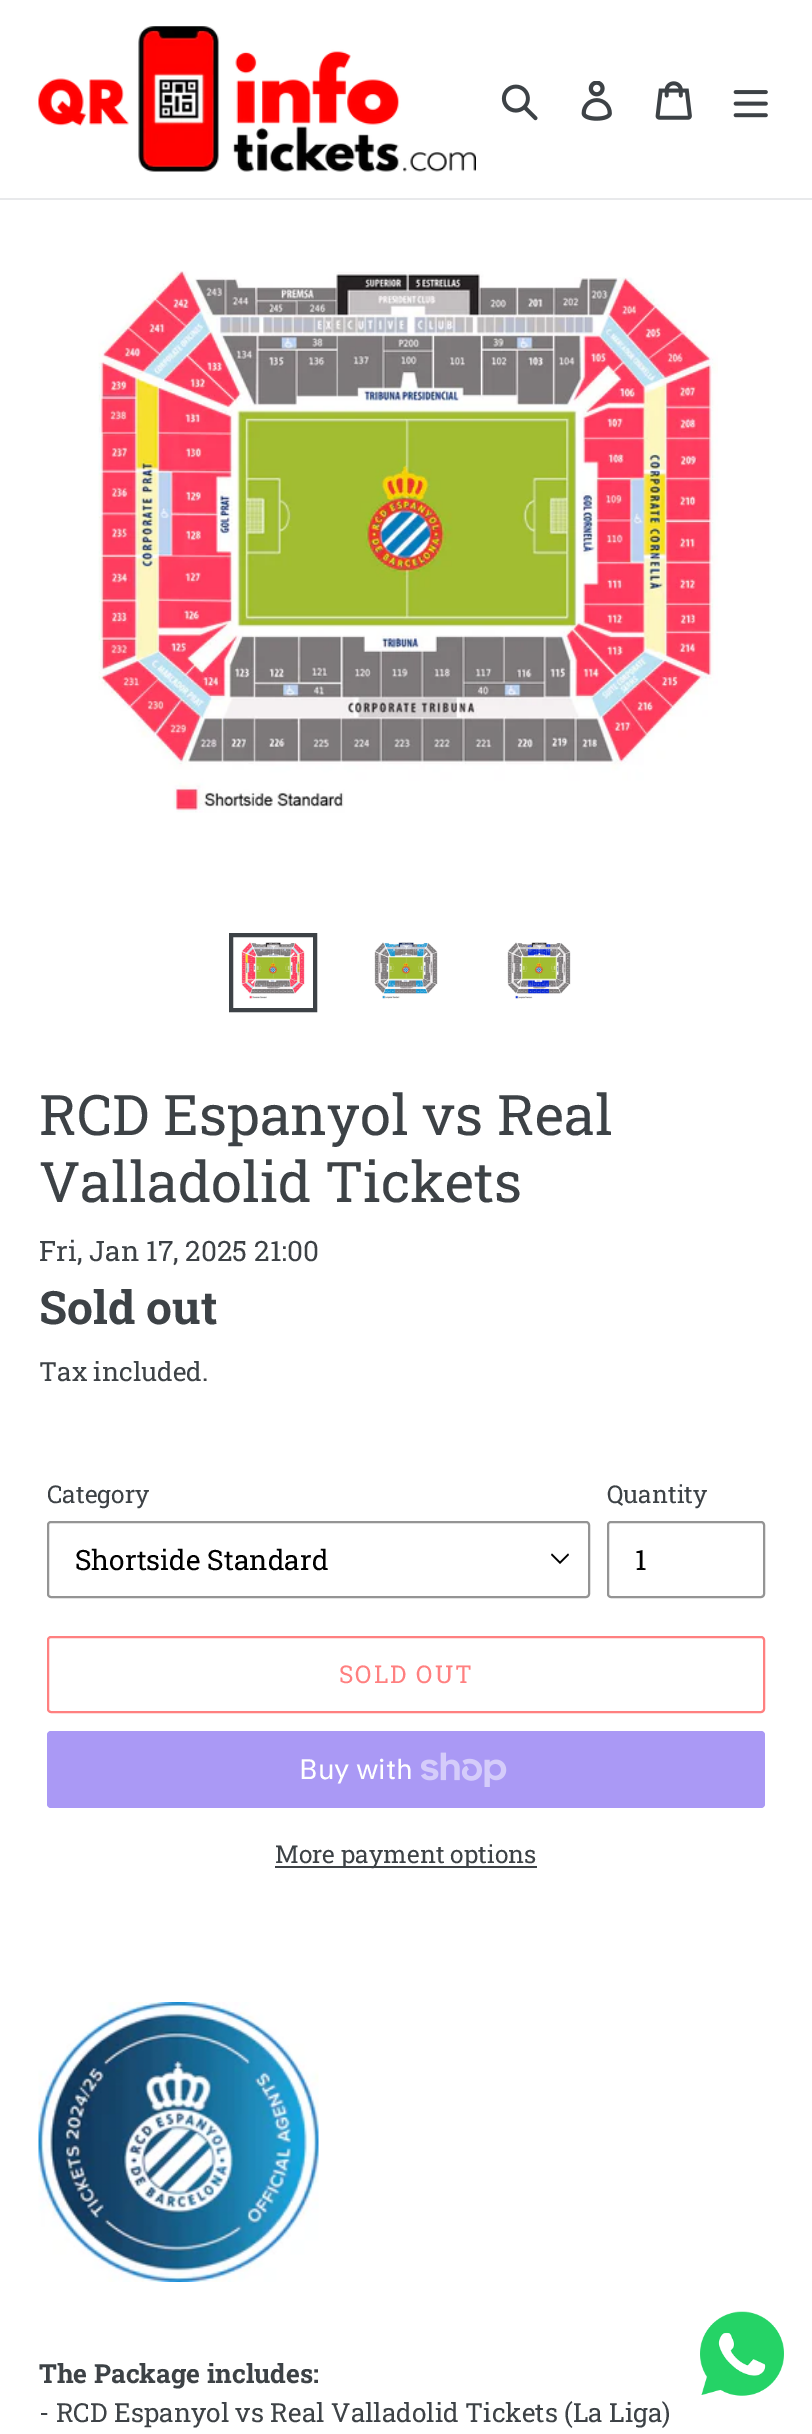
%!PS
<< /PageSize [812 2434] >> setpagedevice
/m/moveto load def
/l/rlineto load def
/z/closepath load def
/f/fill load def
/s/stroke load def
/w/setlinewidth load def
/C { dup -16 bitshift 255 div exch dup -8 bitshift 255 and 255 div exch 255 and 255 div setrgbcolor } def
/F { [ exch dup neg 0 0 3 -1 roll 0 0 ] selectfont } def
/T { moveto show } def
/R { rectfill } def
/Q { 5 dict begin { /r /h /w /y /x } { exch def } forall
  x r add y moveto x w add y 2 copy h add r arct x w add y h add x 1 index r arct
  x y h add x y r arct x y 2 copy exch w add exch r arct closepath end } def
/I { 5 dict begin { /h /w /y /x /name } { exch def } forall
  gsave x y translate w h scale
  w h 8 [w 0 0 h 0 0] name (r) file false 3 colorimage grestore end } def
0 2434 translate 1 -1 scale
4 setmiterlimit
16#FFFFFF C
0 0 812 2434 R
16#E8E9EB C
0 198 812 2 R
(1.rgb) 38 26 438 146 I
(2.rgb) 501 84 37 37 I
(3.rgb) 581 81 31 40 I
(4.rgb) 655 81 37 39 I
(5.rgb) 733 90 35 28 I
(6.rgb) 98 270 620 543 I
16#3D4246 C
4 w
231 935 84 75 rectstroke
(7.rgb) 241 942 65 57 I
(8.rgb) 374 942 64 57 I
(9.rgb) 507 942 64 57 I
/RobotoSlab-Regular 56 F
(RCD Espanyol vs Real) 39 1135 T
(Valladolid Tickets) 39 1202 T
/RobotoSlab-Regular 28 F
(Fri, Jan 17, 2025 21:00) 39 1261 T
/RobotoSlab-Bold 46 F
(Sold out) 39 1324 T
/RobotoSlab-Regular 26.25 F
(Tax included.) 39 1381 T
/RobotoSlab-Regular 24.5 F
(Category) 47 1503 T
16#000000 C
560 1564 m -9 -9 l 1 -1.5 l 8 8 l 8 -8 l 1 1.5 l z f
16#949494 C
2 w
48 1522 541 75 3 Q s
/RobotoSlab-Regular 28 F
16#000000 C
(Shortside Standard) 75 1570 T
/RobotoSlab-Regular 24.5 F
16#3D4246 C
(Quantity) 607 1503 T
16#949494 C
608 1522 156 75 3 Q s
/RobotoSlab-Regular 28 F
16#000000 C
(1) 635 1570 T
16#FF8080 C
48 1637 716 75 3 Q s
/RobotoSlab-Regular 24.5 F
339 1683 m 2 0 (SOLD OUT) ashow
16#AA99F5 C
47 1731 718 77 4 Q f
/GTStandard-Regular 28 F
16#FFFFFF C
(Buy with) 299 1779 T
(10.rgb) 421 1752 86 35 I
16#3D4246 C
275 1866 262 2 R
/RobotoSlab-Regular 24.5 F
(More payment options) 275 1863 T
(11.rgb) 38 2002 281 280 I
/RobotoSlab-Bold 26.25 F
(The Package includes:) 39 2383 T
/RobotoSlab-Regular 26.25 F
(- RCD Espanyol vs Real Valladolid Tickets \(La Liga\)) 39 2422 T
(12.rgb) 700 2311 84 85 I
showpage
